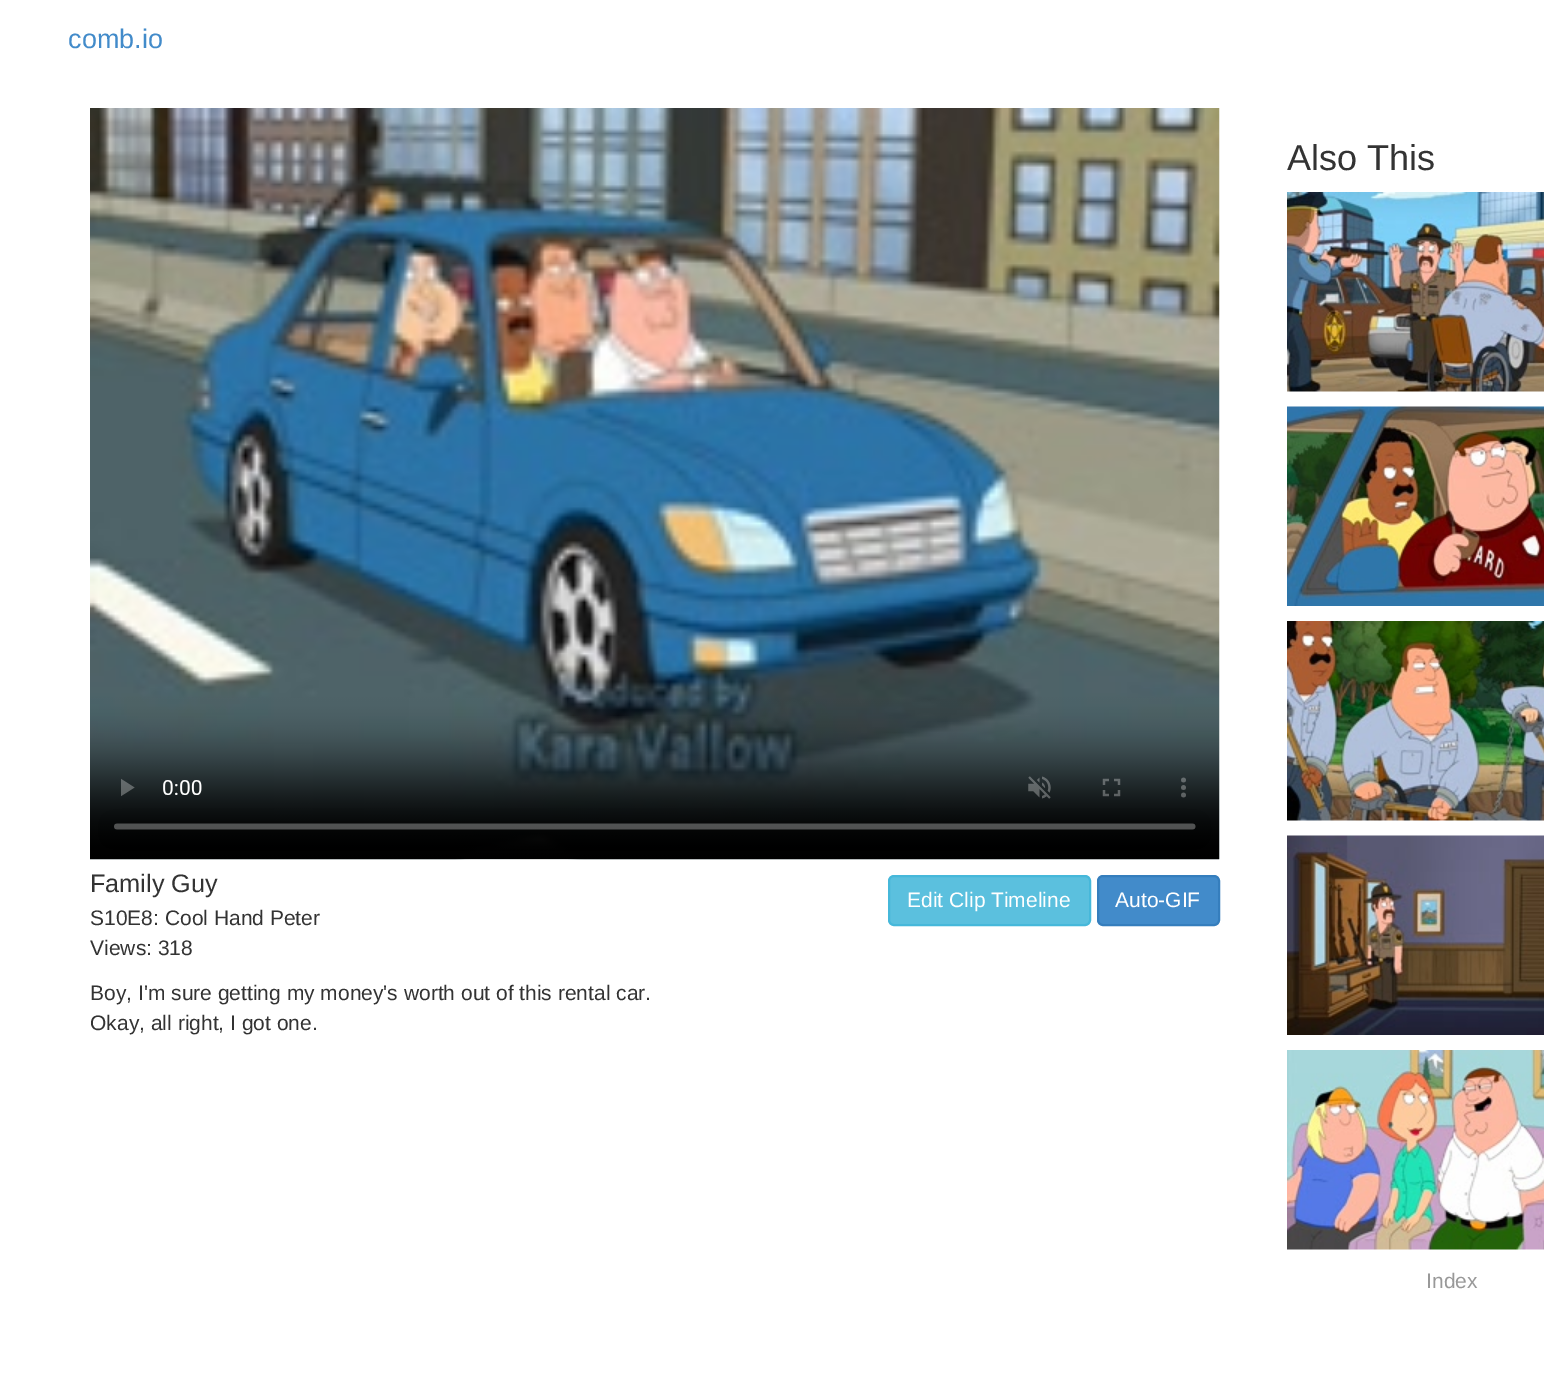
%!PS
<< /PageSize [1544 1388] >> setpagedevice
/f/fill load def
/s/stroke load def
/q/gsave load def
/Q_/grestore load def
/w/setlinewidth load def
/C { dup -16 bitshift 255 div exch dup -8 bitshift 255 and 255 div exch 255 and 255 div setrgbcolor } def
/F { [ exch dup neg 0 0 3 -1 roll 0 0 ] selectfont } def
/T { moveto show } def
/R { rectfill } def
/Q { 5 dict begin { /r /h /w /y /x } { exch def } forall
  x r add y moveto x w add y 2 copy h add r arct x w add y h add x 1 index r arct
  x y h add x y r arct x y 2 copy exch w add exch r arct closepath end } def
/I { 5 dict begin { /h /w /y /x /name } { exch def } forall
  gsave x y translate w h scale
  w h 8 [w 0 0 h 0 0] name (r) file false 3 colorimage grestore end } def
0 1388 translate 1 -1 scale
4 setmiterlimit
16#FFFFFF C
0 0 1544 1388 R
/LiberationSans-Regular 27 F
16#428BCA C
(comb.io) 68 48 T
/LiberationSans-Regular 36 F
16#333333 C
(Also This) 1287 170 T
(1.rgb) 1287 192 257 200 I
(2.rgb) 1287 406 257 200 I
(3.rgb) 1287 621 257 200 I
(4.rgb) 1287 835 257 200 I
(5.rgb) 1287 1050 257 200 I
(6.rgb) 90 108 1130 752 I
/LiberationSans-Regular 25.25 F
(Family Guy) 90 892 T
/LiberationSans-Regular 21 F
(S10E8: Cool Hand Peter) 90 925 T
(Views: 318) 90 955 T
(Boy, I'm sure getting my money's worth out of this rental car.) 90 1000 T
(Okay, all right, I got one.) 90 1030 T
16#5BC0DE C
889 876 201 49 5 Q q f Q_
16#46B8DA C
2 w
s
16#FFFFFF C
(Edit Clip Timeline) 907 907 T
16#428BCA C
1098 876 121 49 5 Q q f Q_
16#357EBD C
s
16#FFFFFF C
(Auto-GIF) 1115 907 T
16#999999 C
(Index) 1426 1288 T
showpage
